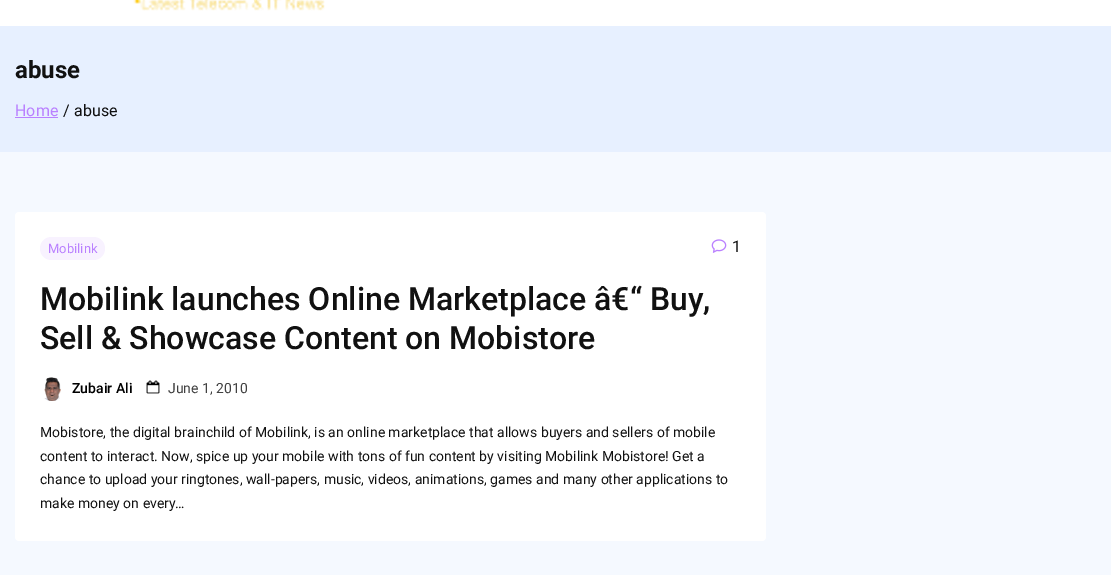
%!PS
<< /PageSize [1111 575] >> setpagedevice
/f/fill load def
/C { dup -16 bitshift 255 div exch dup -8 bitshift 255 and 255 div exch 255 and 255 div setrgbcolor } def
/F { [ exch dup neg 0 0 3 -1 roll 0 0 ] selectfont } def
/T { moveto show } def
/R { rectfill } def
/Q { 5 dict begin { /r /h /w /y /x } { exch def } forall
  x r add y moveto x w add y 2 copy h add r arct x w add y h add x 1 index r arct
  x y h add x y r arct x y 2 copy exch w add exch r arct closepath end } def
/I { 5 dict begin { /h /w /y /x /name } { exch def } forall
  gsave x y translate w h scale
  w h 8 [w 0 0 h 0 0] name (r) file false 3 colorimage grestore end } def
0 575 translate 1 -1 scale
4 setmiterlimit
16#FFFFFF C
0 0 1111 575 R
(1.rgb) 133 0 192 11 I
16#E7F0FF C
0 26 1111 126 R
/Roboto-Bold 24 F
16#111111 C
(abuse) 15 78 T
/Roboto-Regular 16 F
16#BA81FF C
(Home) 15 116 T
15 117 43 1 R
16#111111 C
(/) 63 116 T
(abuse) 74 116 T
16#F5F9FF C
0 152 1111 423 R
16#FFFFFF C
15 212 751 329 4 Q f
16#F8F2FF C
40 237 65 23 11.5 Q f
/Roboto-Regular 13 F
16#BA81FF C
(Mobilink) 48 253 T
(2.rgb) 711 239 16 14 I
/Roboto-Regular 16 F
16#111111 C
(1) 732 252 T
/Roboto-Medium 32 F
(Mobilink launches Online Marketplace â€“ Buy,) 40 310 T
(Sell & Showcase Content on Mobistore) 40 349 T
(3.rgb) 44 377 17 24 I
/Roboto-Medium 14 F
16#000000 C
(Zubair Ali) 72 393 T
(4.rgb) 146 380 14 14 I
/Roboto-Regular 14 F
16#414141 C
(June 1, 2010) 168 393 T
16#111111 C
(Mobistore, the digital brainchild of Mobilink, is an online marketplace that allows buyers and sellers of mobile) 40 437 T
(content to interact. Now, spice up your mobile with tons of fun content by visiting Mobilink Mobistore! Get a) 40 461 T
(chance to upload your ringtones, wall-papers, music, videos, animations, games and many other applications to) 40 484 T
(make money on every…) 40 508 T
showpage
